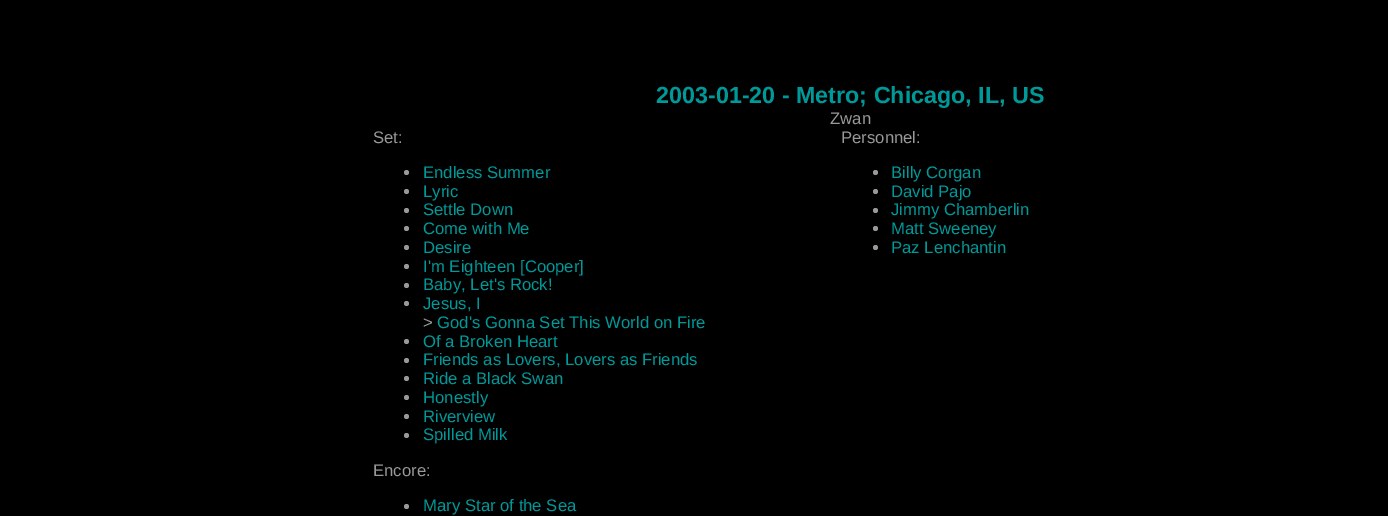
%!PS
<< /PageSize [1388 516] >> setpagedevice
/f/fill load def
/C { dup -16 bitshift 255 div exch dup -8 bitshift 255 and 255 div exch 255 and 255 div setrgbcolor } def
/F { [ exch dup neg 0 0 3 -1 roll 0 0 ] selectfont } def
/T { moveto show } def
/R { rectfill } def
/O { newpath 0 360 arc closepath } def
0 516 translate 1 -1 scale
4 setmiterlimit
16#000000 C
0 0 1388 516 R
/LiberationSans-Bold 23.3 F
16#009999 C
(2003-01-20 - Metro; Chicago, IL, US) 656 103 T
/LiberationSans-Regular 16.7 F
16#999999 C
(Zwan) 830 124 T
(Set:) 373 143 T
406.5 172.5 2.5 O f
16#009999 C
(Endless Summer) 423 178 T
16#999999 C
406.5 191.5 2.5 O f
16#009999 C
(Lyric) 423 197 T
16#999999 C
406.5 210.5 2.5 O f
16#009999 C
(Settle Down) 423 215 T
16#999999 C
406.5 228.5 2.5 O f
16#009999 C
(Come with Me) 423 234 T
16#999999 C
406.5 247.5 2.5 O f
16#009999 C
(Desire) 423 253 T
16#999999 C
406.5 266.5 2.5 O f
16#009999 C
(I'm Eighteen [Cooper]) 423 272 T
16#999999 C
406.5 285.5 2.5 O f
16#009999 C
(Baby, Let's Rock!) 423 290 T
16#999999 C
406.5 303.5 2.5 O f
16#009999 C
(Jesus, I) 423 309 T
16#999999 C
(>) 423 328 T
16#009999 C
(God's Gonna Set This World on Fire) 437 328 T
16#999999 C
406.5 341.5 2.5 O f
16#009999 C
(Of a Broken Heart) 423 347 T
16#999999 C
406.5 360.5 2.5 O f
16#009999 C
(Friends as Lovers, Lovers as Friends) 423 365 T
16#999999 C
406.5 378.5 2.5 O f
16#009999 C
(Ride a Black Swan) 423 384 T
16#999999 C
406.5 397.5 2.5 O f
16#009999 C
(Honestly) 423 403 T
16#999999 C
406.5 416.5 2.5 O f
16#009999 C
(Riverview) 423 422 T
16#999999 C
406.5 435.5 2.5 O f
16#009999 C
(Spilled Milk) 423 440 T
16#999999 C
(Encore:) 373 476 T
406.5 506.5 2.5 O f
16#009999 C
(Mary Star of the Sea) 423 511 T
16#999999 C
(Personnel:) 841 143 T
875.5 172.5 2.5 O f
16#009999 C
(Billy Corgan) 891 178 T
16#999999 C
875.5 191.5 2.5 O f
16#009999 C
(David Pajo) 891 197 T
16#999999 C
875.5 210.5 2.5 O f
16#009999 C
(Jimmy Chamberlin) 891 215 T
16#999999 C
875.5 228.5 2.5 O f
16#009999 C
(Matt Sweeney) 891 234 T
16#999999 C
875.5 247.5 2.5 O f
16#009999 C
(Paz Lenchantin) 891 253 T
showpage
